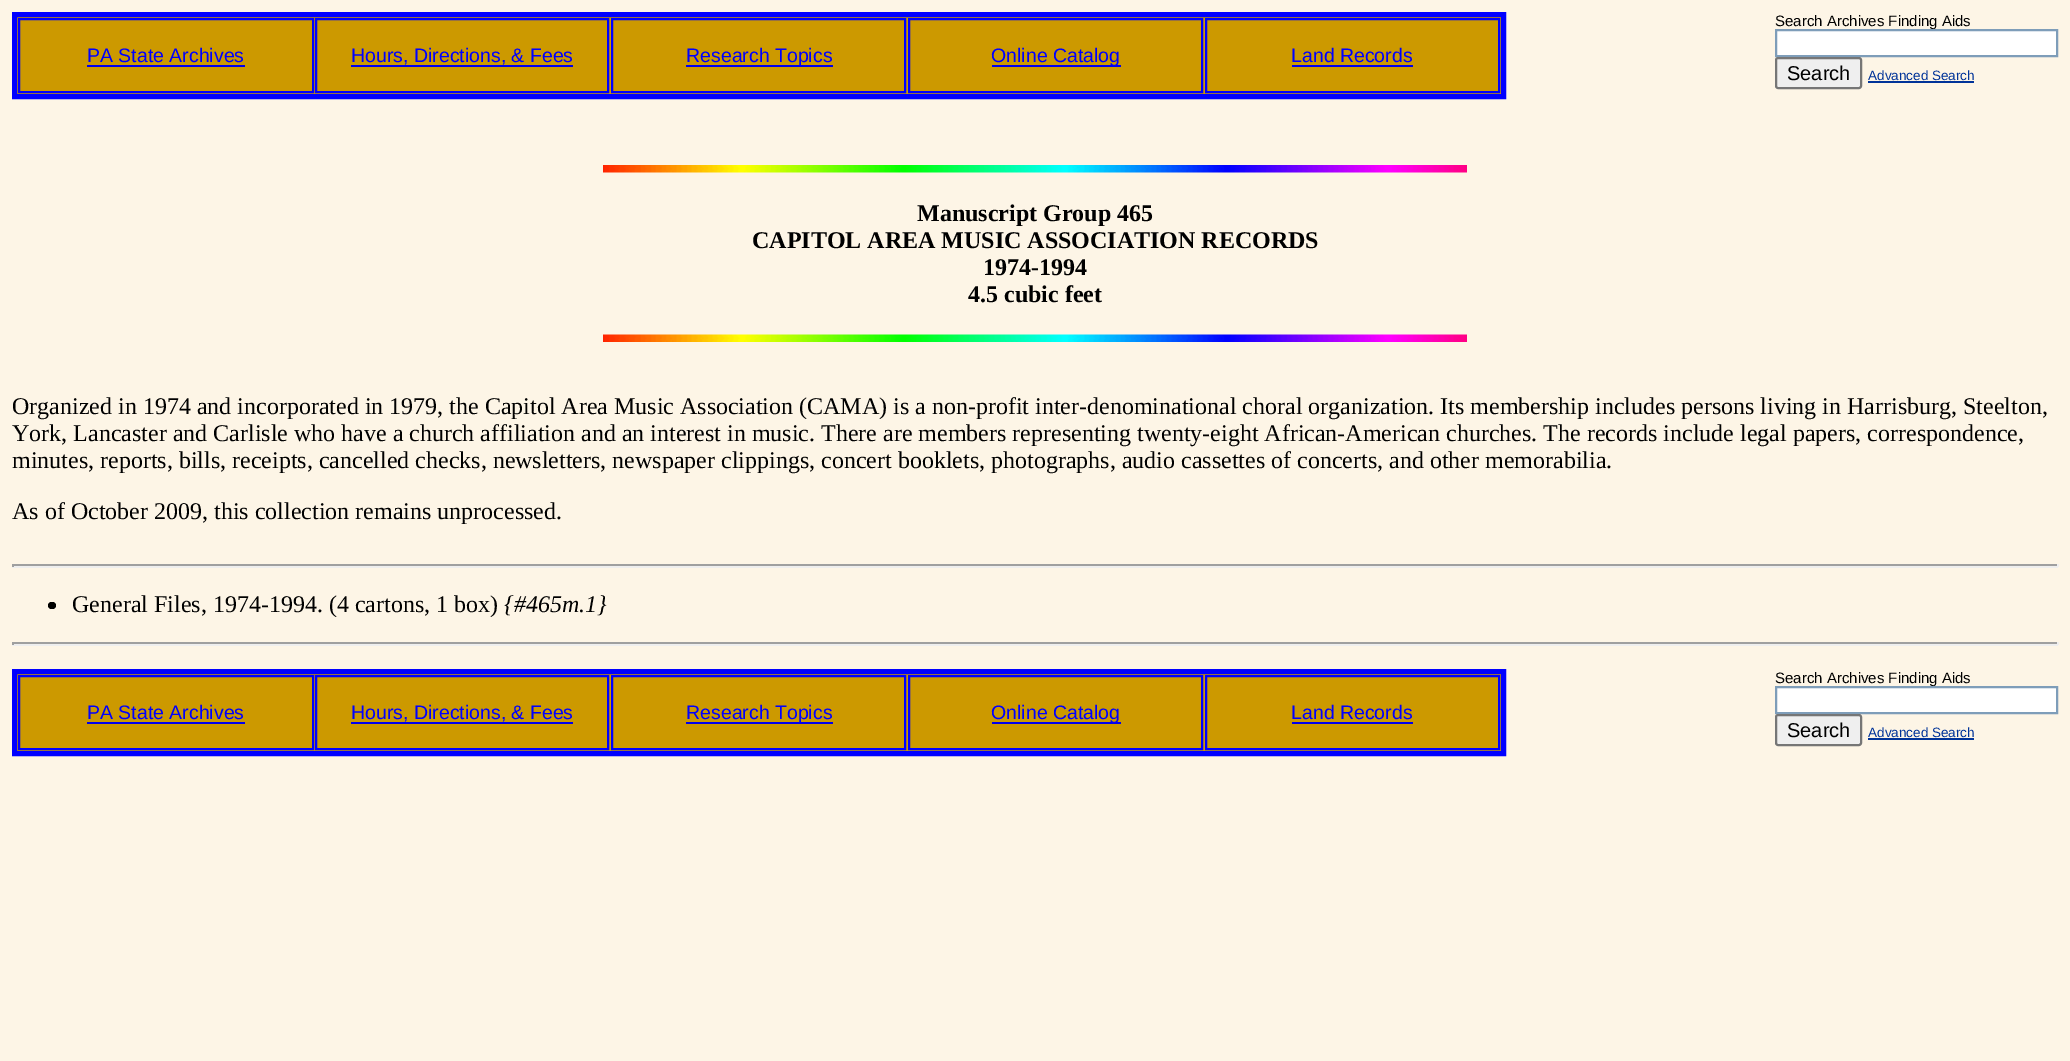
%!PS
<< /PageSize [2070 1061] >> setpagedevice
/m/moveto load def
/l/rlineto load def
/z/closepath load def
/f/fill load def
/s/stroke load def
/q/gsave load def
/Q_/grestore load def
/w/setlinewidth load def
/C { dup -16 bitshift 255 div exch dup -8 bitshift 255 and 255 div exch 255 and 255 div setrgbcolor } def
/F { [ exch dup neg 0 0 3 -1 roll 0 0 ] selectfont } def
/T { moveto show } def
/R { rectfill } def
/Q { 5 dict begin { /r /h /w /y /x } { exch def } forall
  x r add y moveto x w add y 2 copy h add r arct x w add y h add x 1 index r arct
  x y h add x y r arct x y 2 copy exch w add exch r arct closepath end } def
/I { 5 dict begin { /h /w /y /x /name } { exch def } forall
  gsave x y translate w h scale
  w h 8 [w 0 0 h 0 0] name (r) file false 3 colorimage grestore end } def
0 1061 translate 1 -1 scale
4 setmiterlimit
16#FDF5E6 C
0 0 2070 1061 R
16#CC9900 C
14.5 14.5 m 1489 0 l 0 82 l -1489 0 l z q f Q_
16#0000FF C
5 w
s
2 w
19 19 294 73 rectstroke
/LiberationSans-Regular 19.5 F
(PA State Archives) 87 62 T
16#0000EE C
87 65 158 2 R
16#0000FF C
316 19 292 73 rectstroke
(Hours, Directions, & Fees) 351 62 T
16#0000EE C
351 65 222 2 R
16#0000FF C
612 19 293 73 rectstroke
16#0000EE C
686 65 147 2 R
16#0000FF C
(Research Topics) 686 62 T
909 19 293 73 rectstroke
16#0000EE C
992 65 129 2 R
16#0000FF C
(Online Catalog) 991 62 T
1206 19 293 73 rectstroke
(Land Records) 1291 62 T
16#0000EE C
1292 65 121 2 R
/LiberationSans-Regular 15 F
16#000000 C
(Search Archives Finding Aids) 1775 26 T
16#FFFFFF C
1776 30 m 281 0 l 0 26 l -281 0 l z q f Q_
16#7E9DB9 C
s
16#EFEFEF C
1776 58 85 30 2 Q q f Q_
16#767676 C
s
/LiberationSans-Regular 20 F
16#000000 C
(Search) 1787 80 T
/LiberationSans-Regular 13.5 F
16#003399 C
(Advanced Search) 1868 80 T
1868 81 106 2 R
(1.rgb) 603 165 864 8 I
/LiberationSerif-Bold 24 F
16#000000 C
(Manuscript Group 465) 917 221 T
(CAPITOL AREA MUSIC ASSOCIATION RECORDS) 752 248 T
(1974-1994) 983 275 T
(4.5 cubic feet) 968 302 T
(2.rgb) 603 334 864 8 I
/LiberationSerif-Regular 24 F
(Organized in 1974 and incorporated in 1979, the Capitol Area Music Association \(CAMA\) is a non-profit inter-denominational choral organization. Its membership includes persons living in Harrisburg, Steelton,) 12 414 T
(York, Lancaster and Carlisle who have a church affiliation and an interest in music. There are members representing twenty-eight African-American churches. The records include legal papers, correspondence,) 12 441 T
(minutes, reports, bills, receipts, cancelled checks, newsletters, newspaper clippings, concert booklets, photographs, audio cassettes of concerts, and other memorabilia.) 12 468 T
(As of October 2009, this collection remains unprocessed.) 12 519 T
16#9F9F9F C
12 564 2046 2 R
16#EEEEEE C
2057 564 2 3 R
12 566 2046 2 R
16#9F9F9F C
12 564 2 3 R
16#000000 C
48 602 8 7 3.5 Q f
(General Files, 1974-1994. \(4 cartons, 1 box\)) 72 612 T
/LiberationSerif-Italic 24 F
({#465m.1}) 504 612 T
16#9F9F9F C
12 642 2046 2 R
16#EEEEEE C
2057 642 2 3 R
12 644 2046 2 R
16#9F9F9F C
12 642 2 3 R
16#CC9900 C
14.5 671.5 m 1489 0 l 0 82 l -1489 0 l z q f Q_
16#0000FF C
5 w
s
2 w
19 676 294 73 rectstroke
/LiberationSans-Regular 19.5 F
(PA State Archives) 87 719 T
16#0000EE C
87 722 158 2 R
16#0000FF C
316 676 292 73 rectstroke
(Hours, Directions, & Fees) 351 719 T
16#0000EE C
351 722 222 2 R
16#0000FF C
612 676 293 73 rectstroke
16#0000EE C
686 722 147 2 R
16#0000FF C
(Research Topics) 686 719 T
909 676 293 73 rectstroke
16#0000EE C
992 722 129 2 R
16#0000FF C
(Online Catalog) 991 719 T
1206 676 293 73 rectstroke
(Land Records) 1291 719 T
16#0000EE C
1292 722 121 2 R
/LiberationSans-Regular 15 F
16#000000 C
(Search Archives Finding Aids) 1775 683 T
16#FFFFFF C
1776 687 m 281 0 l 0 26 l -281 0 l z q f Q_
16#7E9DB9 C
s
16#EFEFEF C
1776 715 85 30 2 Q q f Q_
16#767676 C
s
/LiberationSans-Regular 20 F
16#000000 C
(Search) 1787 737 T
/LiberationSans-Regular 13.5 F
16#003399 C
(Advanced Search) 1868 737 T
1868 738 106 2 R
showpage
